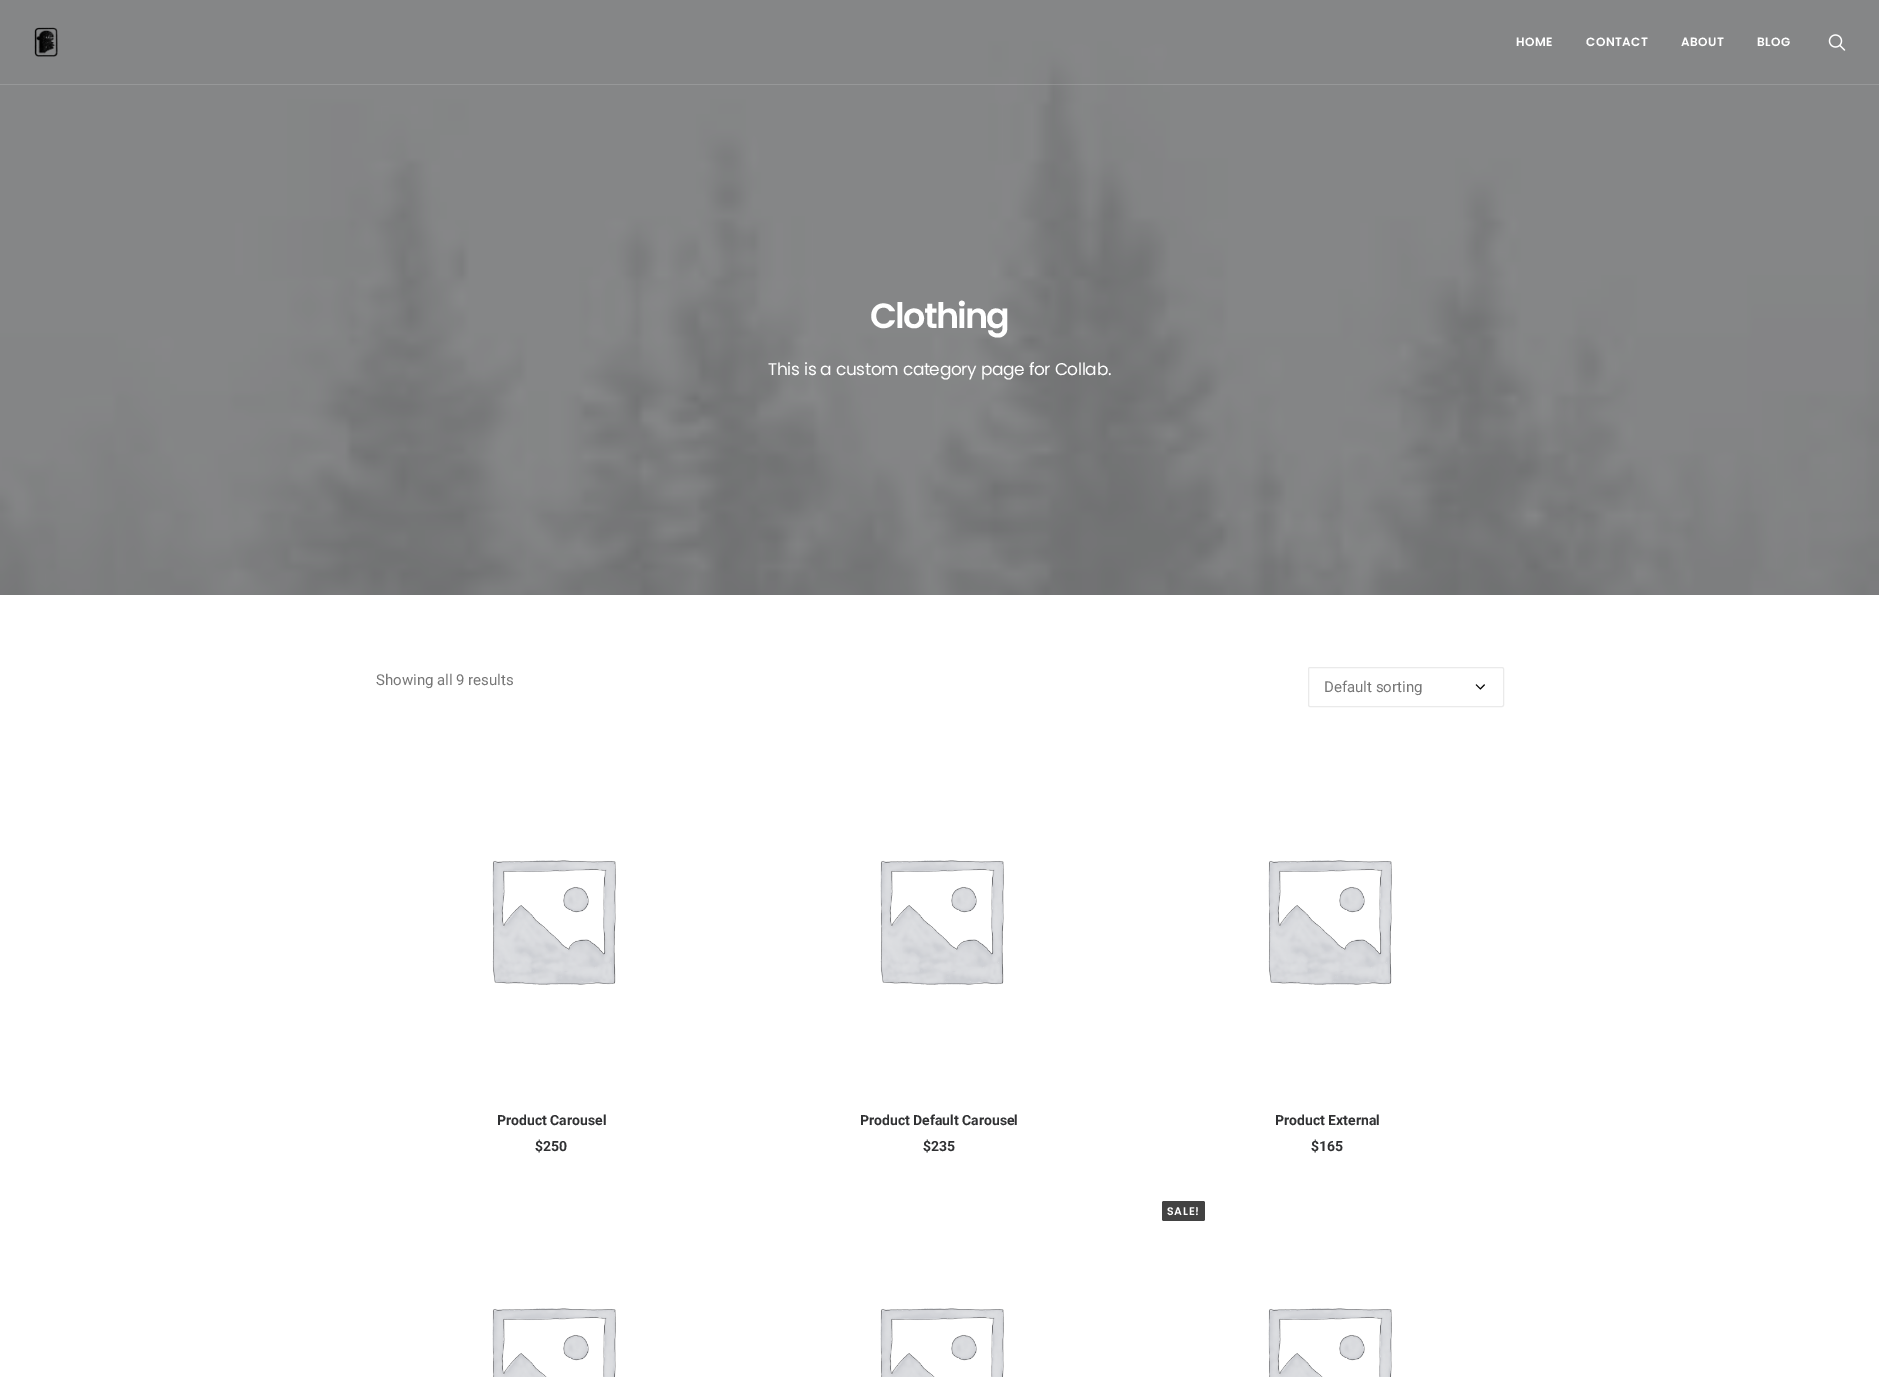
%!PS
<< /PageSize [1879 1377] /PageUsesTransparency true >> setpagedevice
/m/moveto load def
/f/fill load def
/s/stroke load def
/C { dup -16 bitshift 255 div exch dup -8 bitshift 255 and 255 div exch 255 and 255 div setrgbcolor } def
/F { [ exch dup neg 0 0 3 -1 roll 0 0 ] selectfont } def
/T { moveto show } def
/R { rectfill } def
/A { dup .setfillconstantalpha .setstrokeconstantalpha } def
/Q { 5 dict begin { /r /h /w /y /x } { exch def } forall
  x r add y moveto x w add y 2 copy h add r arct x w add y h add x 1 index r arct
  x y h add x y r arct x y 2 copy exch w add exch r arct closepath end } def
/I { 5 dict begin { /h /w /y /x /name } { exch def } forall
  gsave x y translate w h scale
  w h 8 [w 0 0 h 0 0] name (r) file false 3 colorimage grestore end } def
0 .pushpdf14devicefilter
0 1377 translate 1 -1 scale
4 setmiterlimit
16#FFFFFF C
0 0 1879 1377 R
(3.rgb) 0 0 1879 595 I
0.15 A
0 84 1879 1 R
1 A
(1.rgb) 34 27 24 30 I
/Poppins-SemiBold 12 F
1516 46 m .5 0 (HOME) ashow
1586 46 m .5 0 (CONTACT) ashow
1681 46 m .5 0 (ABOUT) ashow
1757 46 m .5 0 (BLOG) ashow
(2.rgb) 1828 34 18 17 I
/Poppins-SemiBold 35 F
870 328 m -1.75 0 (Clothing) ashow
/Poppins-Regular 17 F
768 375 m -.35 0 (This is a custom category page for Collab.) ashow
/Roboto-Regular 15 F
16#777777 C
(Showing all 9 results) 376 685 T
(4.rgb) 1475 684 10 6 I
16#EAEAEA C
1308.5 667.5 195 39 1.5 Q s
16#777777 C
(Default sorting) 1324 692 T
(5.rgb) 492 860 124 125 I
/Roboto-Bold 14 F
16#303133 C
(Product Carousel) 497 1125 T
($250) 535 1151 T
(5.rgb) 880 860 124 125 I
(Product Default Carousel) 860 1125 T
($235) 923 1151 T
(5.rgb) 1268 860 124 125 I
(Product External) 1275 1125 T
($165) 1311 1151 T
16#424242 C
1162 1201 43 20 2 Q f
/Poppins-SemiBold 11 F
16#FFFFFF C
1167 1215 m .75 0 (SALE!) ashow
(6.rgb) 1268 1308 124 69 I
(6.rgb) 492 1308 124 69 I
(6.rgb) 880 1308 124 69 I
.poppdf14devicefilter showpage
